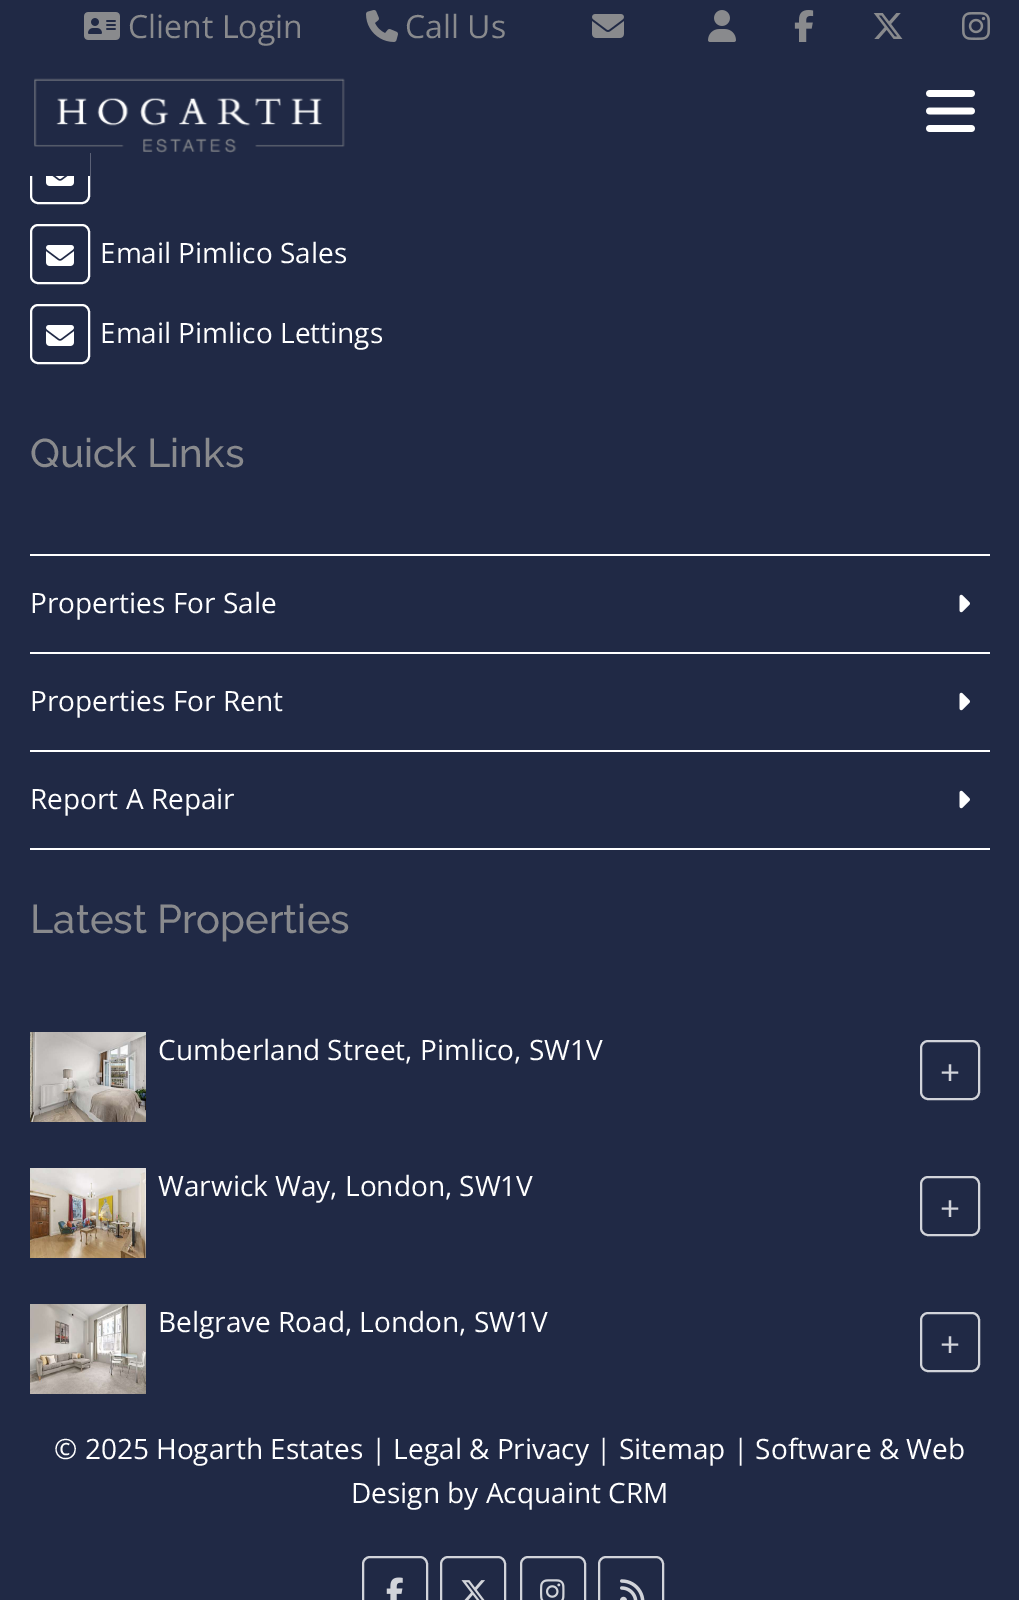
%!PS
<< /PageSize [1019 1600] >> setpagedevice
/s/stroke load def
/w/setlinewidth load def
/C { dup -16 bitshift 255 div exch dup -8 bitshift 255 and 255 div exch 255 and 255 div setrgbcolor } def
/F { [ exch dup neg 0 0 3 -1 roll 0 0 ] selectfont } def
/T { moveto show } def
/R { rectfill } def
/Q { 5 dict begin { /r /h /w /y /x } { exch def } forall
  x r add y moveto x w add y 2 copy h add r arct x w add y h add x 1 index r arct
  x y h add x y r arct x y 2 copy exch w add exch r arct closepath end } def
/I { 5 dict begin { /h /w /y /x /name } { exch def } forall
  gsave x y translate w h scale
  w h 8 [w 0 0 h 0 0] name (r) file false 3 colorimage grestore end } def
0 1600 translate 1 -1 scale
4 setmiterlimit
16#202945 C
0 0 1019 1600 R
16#FFFFFF C
2 w
31 145 58 58 7 Q s
16#202945 C
30 144 60 32 R
(1.rgb) 84 12 36 28 I
/OpenSans-Regular 32 F
16#898A8D C
(Client Login) 128 38 T
(2.rgb) 366 10 32 32 I
(Call Us) 405 38 T
(3.rgb) 592 14 32 24 I
(4.rgb) 708 10 28 32 I
(5.rgb) 794 10 20 32 I
(6.rgb) 873 13 30 26 I
(7.rgb) 962 12 28 28 I
(8.rgb) 34 78 311 75 I
(9.rgb) 926 90 49 42 I
(10.rgb) 46 176 28 10 I
16#FFFFFF C
31 225 58 58 7 Q s
(11.rgb) 46 245 28 21 I
/OpenSans-Regular 28 F
(Email Pimlico Sales) 100 263 T
31 305 58 58 7 Q s
(11.rgb) 46 325 28 21 I
(Email Pimlico Lettings) 100 343 T
/Raleway-Medium 40 F
16#898A8D C
(Quick Links) 30 467 T
16#FFFFFF C
30 554 960 2 R
/OpenSans-Regular 28 F
(Properties For Sale) 30 613 T
(12.rgb) 959 594 11 19 I
30 652 960 2 R
(Properties For Rent) 30 711 T
(12.rgb) 959 692 11 19 I
30 750 960 2 R
30 848 960 2 R
(Report A Repair) 30 809 T
(12.rgb) 959 790 11 19 I
/Raleway-Medium 40 F
16#898A8D C
(Latest Properties) 30 933 T
(13.rgb) 30 1032 116 90 I
/OpenSans-Regular 28 F
16#FFFFFF C
(Cumberland Street, Pimlico, SW1V) 158 1060 T
16#D2D4DA C
921 1041 58 58 7 Q s
/OpenSans-Regular 35 F
(+) 940 1085 T
(14.rgb) 30 1168 116 90 I
/OpenSans-Regular 28 F
16#FFFFFF C
(Warwick Way, London, SW1V) 158 1196 T
16#D2D4DA C
921 1177 58 58 7 Q s
/OpenSans-Regular 35 F
(+) 940 1221 T
(15.rgb) 30 1304 116 90 I
/OpenSans-Regular 28 F
16#FFFFFF C
(Belgrave Road, London, SW1V) 158 1332 T
16#D2D4DA C
921 1313 58 58 7 Q s
/OpenSans-Regular 35 F
(+) 940 1357 T
/OpenSans-Regular 28 F
16#FFFFFF C
(© 2025 Hogarth Estates | Legal & Privacy | Sitemap | Software & Web) 54 1459 T
(Design by Acquaint CRM) 351 1503 T
16#D2D4DA C
363 1557 64 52 7 Q s
(16.rgb) 386 1577 17 23 I
441 1557 64 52 7 Q s
(17.rgb) 461 1580 24 20 I
521 1557 64 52 7 Q s
(18.rgb) 540 1579 25 21 I
599 1557 64 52 7 Q s
(19.rgb) 620 1579 25 21 I
showpage
